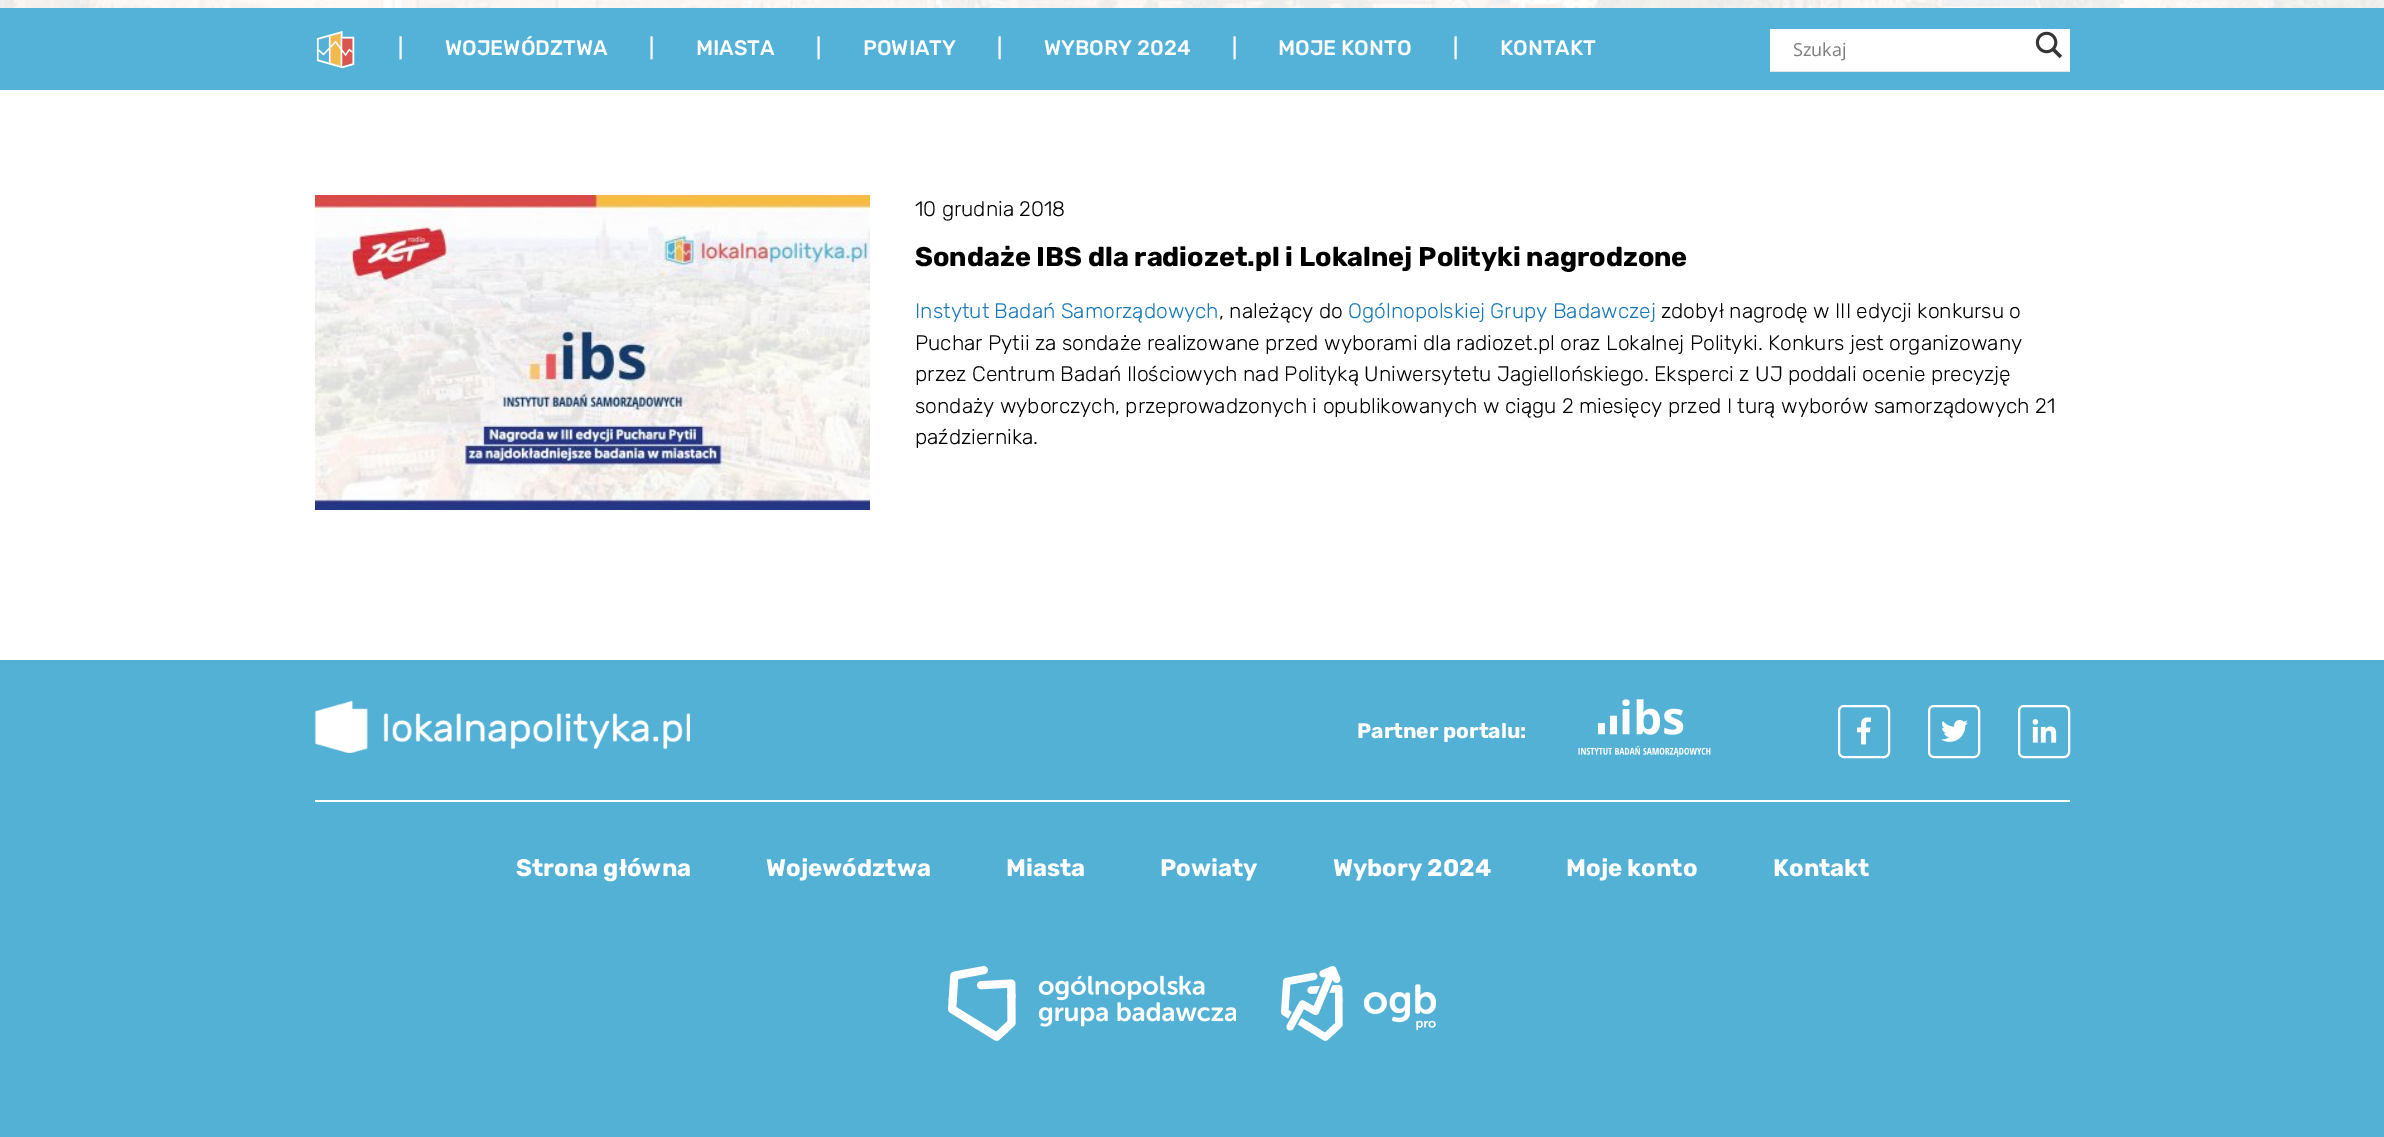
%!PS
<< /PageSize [2384 1137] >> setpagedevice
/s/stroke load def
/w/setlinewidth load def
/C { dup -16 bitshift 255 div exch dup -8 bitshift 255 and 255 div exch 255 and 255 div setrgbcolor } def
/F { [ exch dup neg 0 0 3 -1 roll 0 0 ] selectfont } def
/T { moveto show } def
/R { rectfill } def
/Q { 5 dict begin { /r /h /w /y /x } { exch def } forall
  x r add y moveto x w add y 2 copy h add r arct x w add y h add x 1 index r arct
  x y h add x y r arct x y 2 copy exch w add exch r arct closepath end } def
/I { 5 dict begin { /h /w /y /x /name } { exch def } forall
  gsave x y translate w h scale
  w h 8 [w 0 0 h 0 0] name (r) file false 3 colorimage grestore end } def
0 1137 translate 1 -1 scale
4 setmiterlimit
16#FFFFFF C
0 0 2384 1137 R
(1.rgb) 0 0 2384 8 I
16#54B2D8 C
0 8 2384 82 R
(2.rgb) 316 31 39 38 I
/Rubik-Medium 21 F
16#FFFFFF C
(|) 398 55 T
(WOJEWÓDZTWA) 445 55 T
(|) 649 55 T
(MIASTA) 696 55 T
(|) 816 55 T
(POWIATY) 863 55 T
(|) 997 55 T
(WYBORY 2024) 1044 55 T
(|) 1232 55 T
(MOJE KONTO) 1278 55 T
(|) 1453 55 T
(KONTAKT) 1500 55 T
16#E4E4E4 C
1770 71 300 1 R
16#FFFFFF C
1770 29 300 42 R
/OpenSans-Regular 18 F
16#7D7D7D C
(Szukaj) 1793 56 T
(3.rgb) 2035 31 28 28 I
(4.rgb) 315 195 555 315 I
/Rubik-Light 21 F
16#000000 C
(10 grudnia 2018) 915 216 T
/Rubik-Bold 27 F
(Sondaże IBS dla radiozet.pl i Lokalnej Polityki nagrodzone) 915 266 T
/Rubik-Light 21 F
16#1779BA C
(Instytut Badań Samorządowych) 915 318 T
16#000000 C
(, należący do) 1219 318 T
16#1779BA C
(Ogólnopolskiej Grupy Badawczej) 1348 318 T
16#000000 C
(zdobył nagrodę w III edycji konkursu o) 1661 318 T
(Puchar Pytii za sondaże realizowane przed wyborami dla radiozet.pl oraz Lokalnej Polityki. Konkurs jest organizowany) 915 350 T
(przez Centrum Badań Ilościowych nad Polityką Uniwersytetu Jagiellońskiego. Eksperci z UJ poddali ocenie precyzję) 915 381 T
(sondaży wyborczych, przeprowadzonych i opublikowanych w ciągu 2 miesięcy przed I turą wyborów samorządowych 21) 915 413 T
(października.) 915 444 T
16#54B1D6 C
0 660 2384 477 R
(5.rgb) 315 700 375 53 I
/Rubik-Bold 21 F
16#FFFFFF C
(Partner portalu:) 1357 738 T
(6.rgb) 1578 699 133 58 I
2 w
1839 706 50 51 5 Q s
(7.rgb) 1857 717 14 28 I
1929 706 50 51 5 Q s
(8.rgb) 1941 719 27 23 I
2019 706 50 51 5 Q s
(9.rgb) 2032 719 25 24 I
315 800 1755 2 R
/Rubik-Bold 24 F
(Strona główna) 516 876 T
(Województwa) 766 876 T
(Miasta) 1006 876 T
(Powiaty) 1160 876 T
(Wybory 2024) 1333 876 T
(Moje konto) 1566 876 T
(Kontakt) 1773 876 T
(10.rgb) 948 966 288 75 I
(11.rgb) 1281 966 156 75 I
showpage
